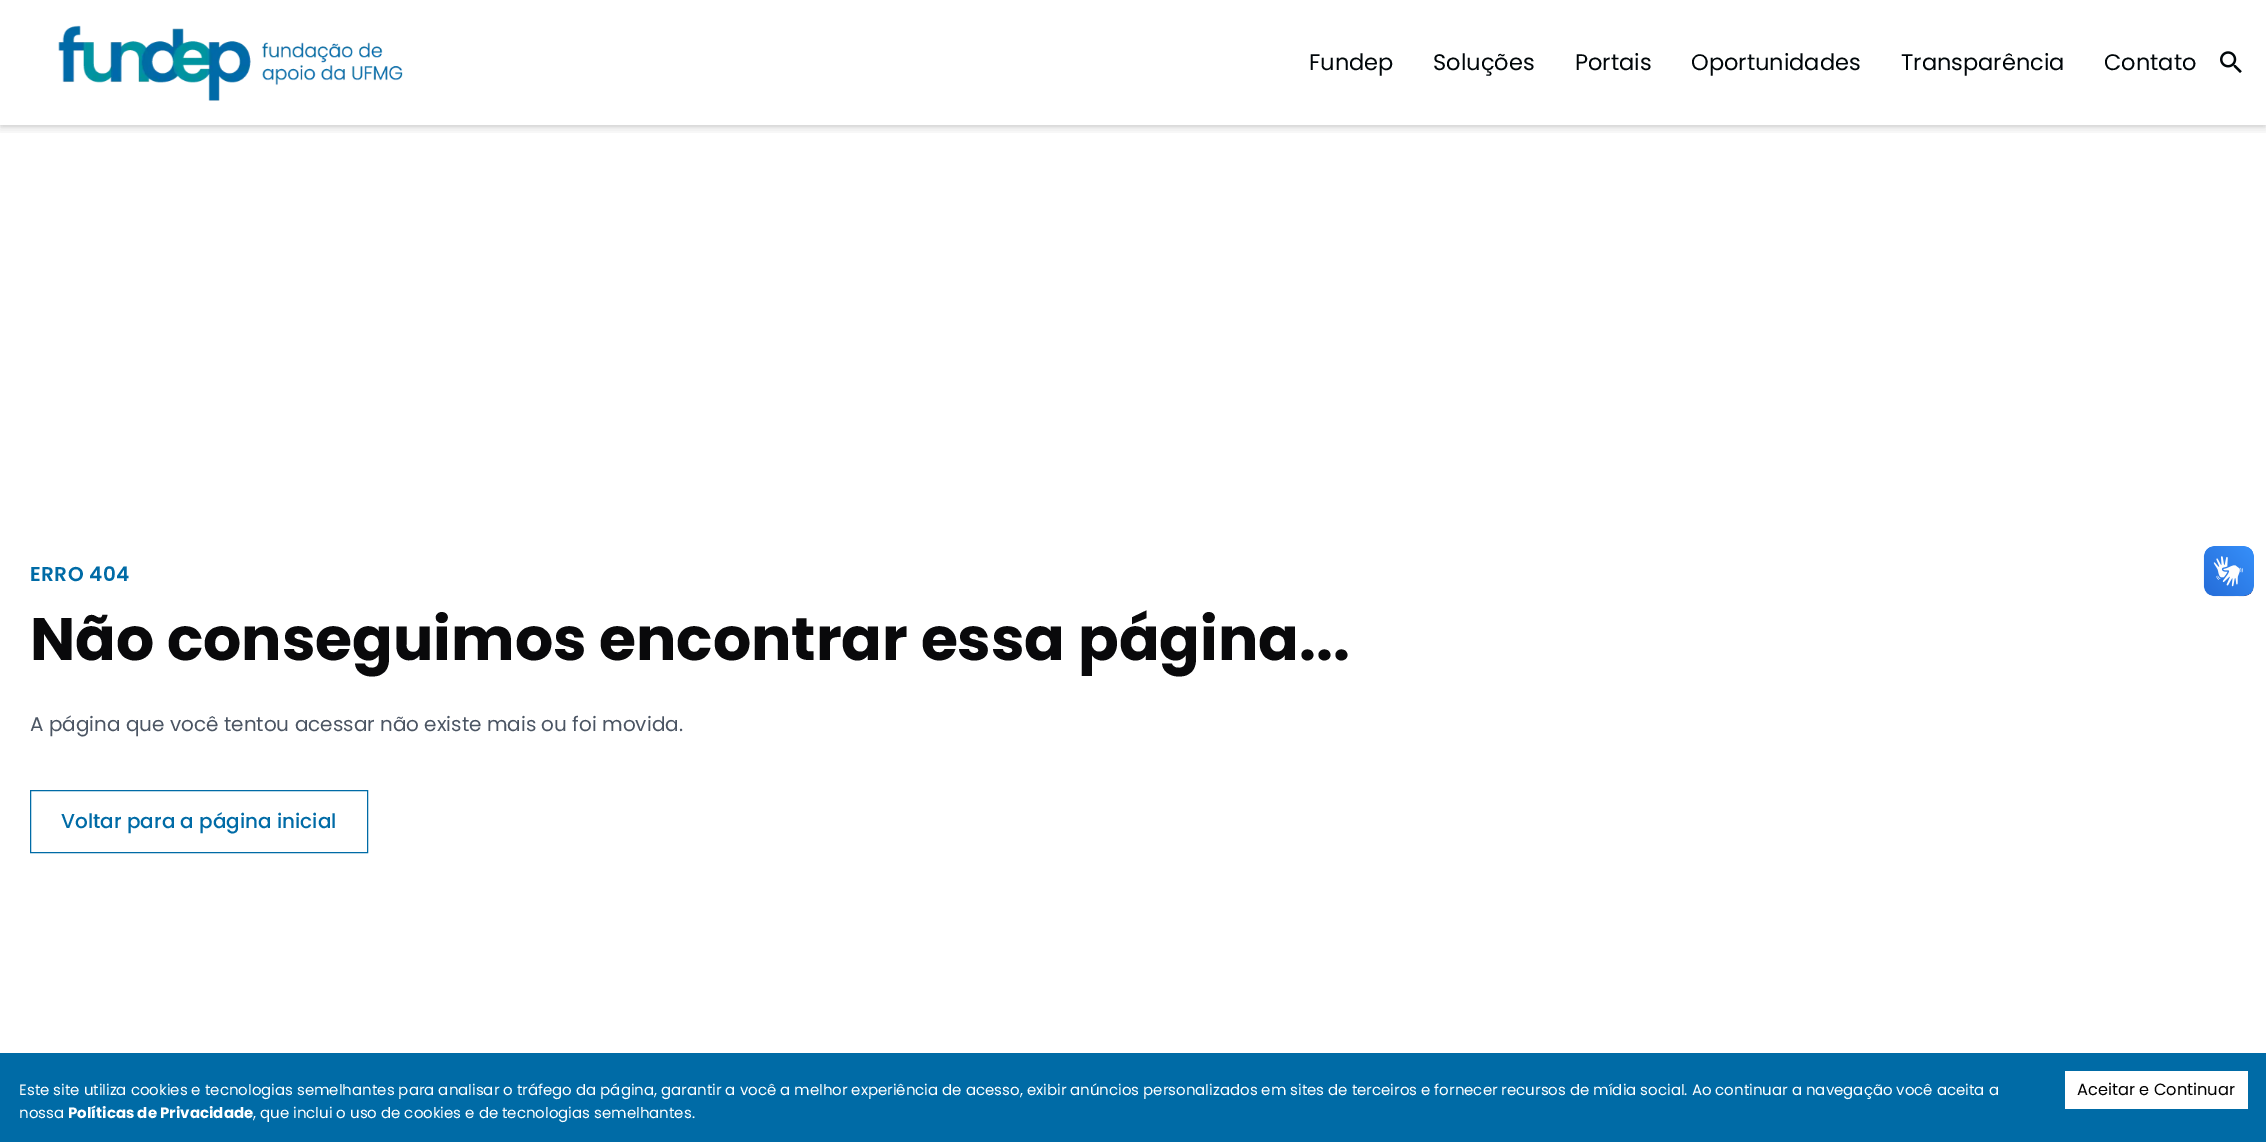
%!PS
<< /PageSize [2266 1142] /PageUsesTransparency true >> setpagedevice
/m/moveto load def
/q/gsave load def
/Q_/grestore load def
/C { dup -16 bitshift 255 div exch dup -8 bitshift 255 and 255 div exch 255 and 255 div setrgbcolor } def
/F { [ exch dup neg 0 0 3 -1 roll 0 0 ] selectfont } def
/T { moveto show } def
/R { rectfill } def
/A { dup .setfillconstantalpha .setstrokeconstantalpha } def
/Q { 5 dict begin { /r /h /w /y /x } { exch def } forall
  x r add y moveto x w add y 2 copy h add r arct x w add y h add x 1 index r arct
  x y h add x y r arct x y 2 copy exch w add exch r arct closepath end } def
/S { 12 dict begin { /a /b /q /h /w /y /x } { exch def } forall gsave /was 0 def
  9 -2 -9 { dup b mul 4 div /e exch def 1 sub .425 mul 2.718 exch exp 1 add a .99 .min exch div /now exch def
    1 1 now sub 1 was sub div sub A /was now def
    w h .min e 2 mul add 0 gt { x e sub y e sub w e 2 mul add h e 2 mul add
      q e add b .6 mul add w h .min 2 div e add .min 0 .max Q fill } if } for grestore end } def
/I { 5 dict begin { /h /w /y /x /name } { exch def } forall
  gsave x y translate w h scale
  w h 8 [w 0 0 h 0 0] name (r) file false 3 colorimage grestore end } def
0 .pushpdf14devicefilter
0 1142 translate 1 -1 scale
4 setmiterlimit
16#FFFFFF C
0 0 2266 1142 R
q
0 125 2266 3 rectclip
16#000000 C
0 1 2266 125 0 2 .1 S
Q_
q
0 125 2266 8 rectclip
16#000000 C
0 5 2266 125 0 4 .1 S
Q_
(1.rgb) 58 25 345 76 I
/Poppins-Regular 22.5 F
16#000609 C
(Fundep) 1309 70 T
(Soluções) 1433 70 T
(Portais) 1575 70 T
(Oportunidades) 1691 70 T
(Transparência) 1901 70 T
(Contato) 2104 70 T
(2.rgb) 2220 51 22 22 I
(3.rgb) 2203 546 51 51 I
(4.rgb) 2204 546 50 50 I
/Poppins-SemiBold 20 F
16#006BA6 C
30 581 m .5 0 (ERRO 404) ashow
/Poppins-Bold 60 F
16#09090B C
(Não conseguimos encontrar essa página...) 30 660 T
/Poppins-Regular 20 F
16#4B5563 C
(A página que você tentou acessar não existe mais ou foi movida.) 30 731 T
16#006BA6 C
30.5 790.5 337 62 rectstroke
/Poppins-Medium 20 F
(Voltar para a página inicial) 61 828 T
0 1053 2266 89 R
/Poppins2-Regular 15 F
16#FFFFFF C
(Este site utiliza cookies e tecnologias semelhantes para analisar o tráfego da página, garantir a você a melhor experiência de acesso, exibir anúncios personalizados em sites de terceiros e fornecer recursos de mídia social. Ao continuar a navegação você aceita a) 19 1095 T
(nossa) 19 1118 T
/Poppins-Bold 15 F
(Políticas de Privacidade) 68 1118 T
/Poppins2-Regular 15 F
(, que inclui o uso de cookies e de tecnologias semelhantes.) 253 1118 T
2065 1071 183 38 R
/Poppins2-Regular 16.25 F
16#000000 C
(Aceitar e Continuar) 2077 1095 T
.poppdf14devicefilter showpage
